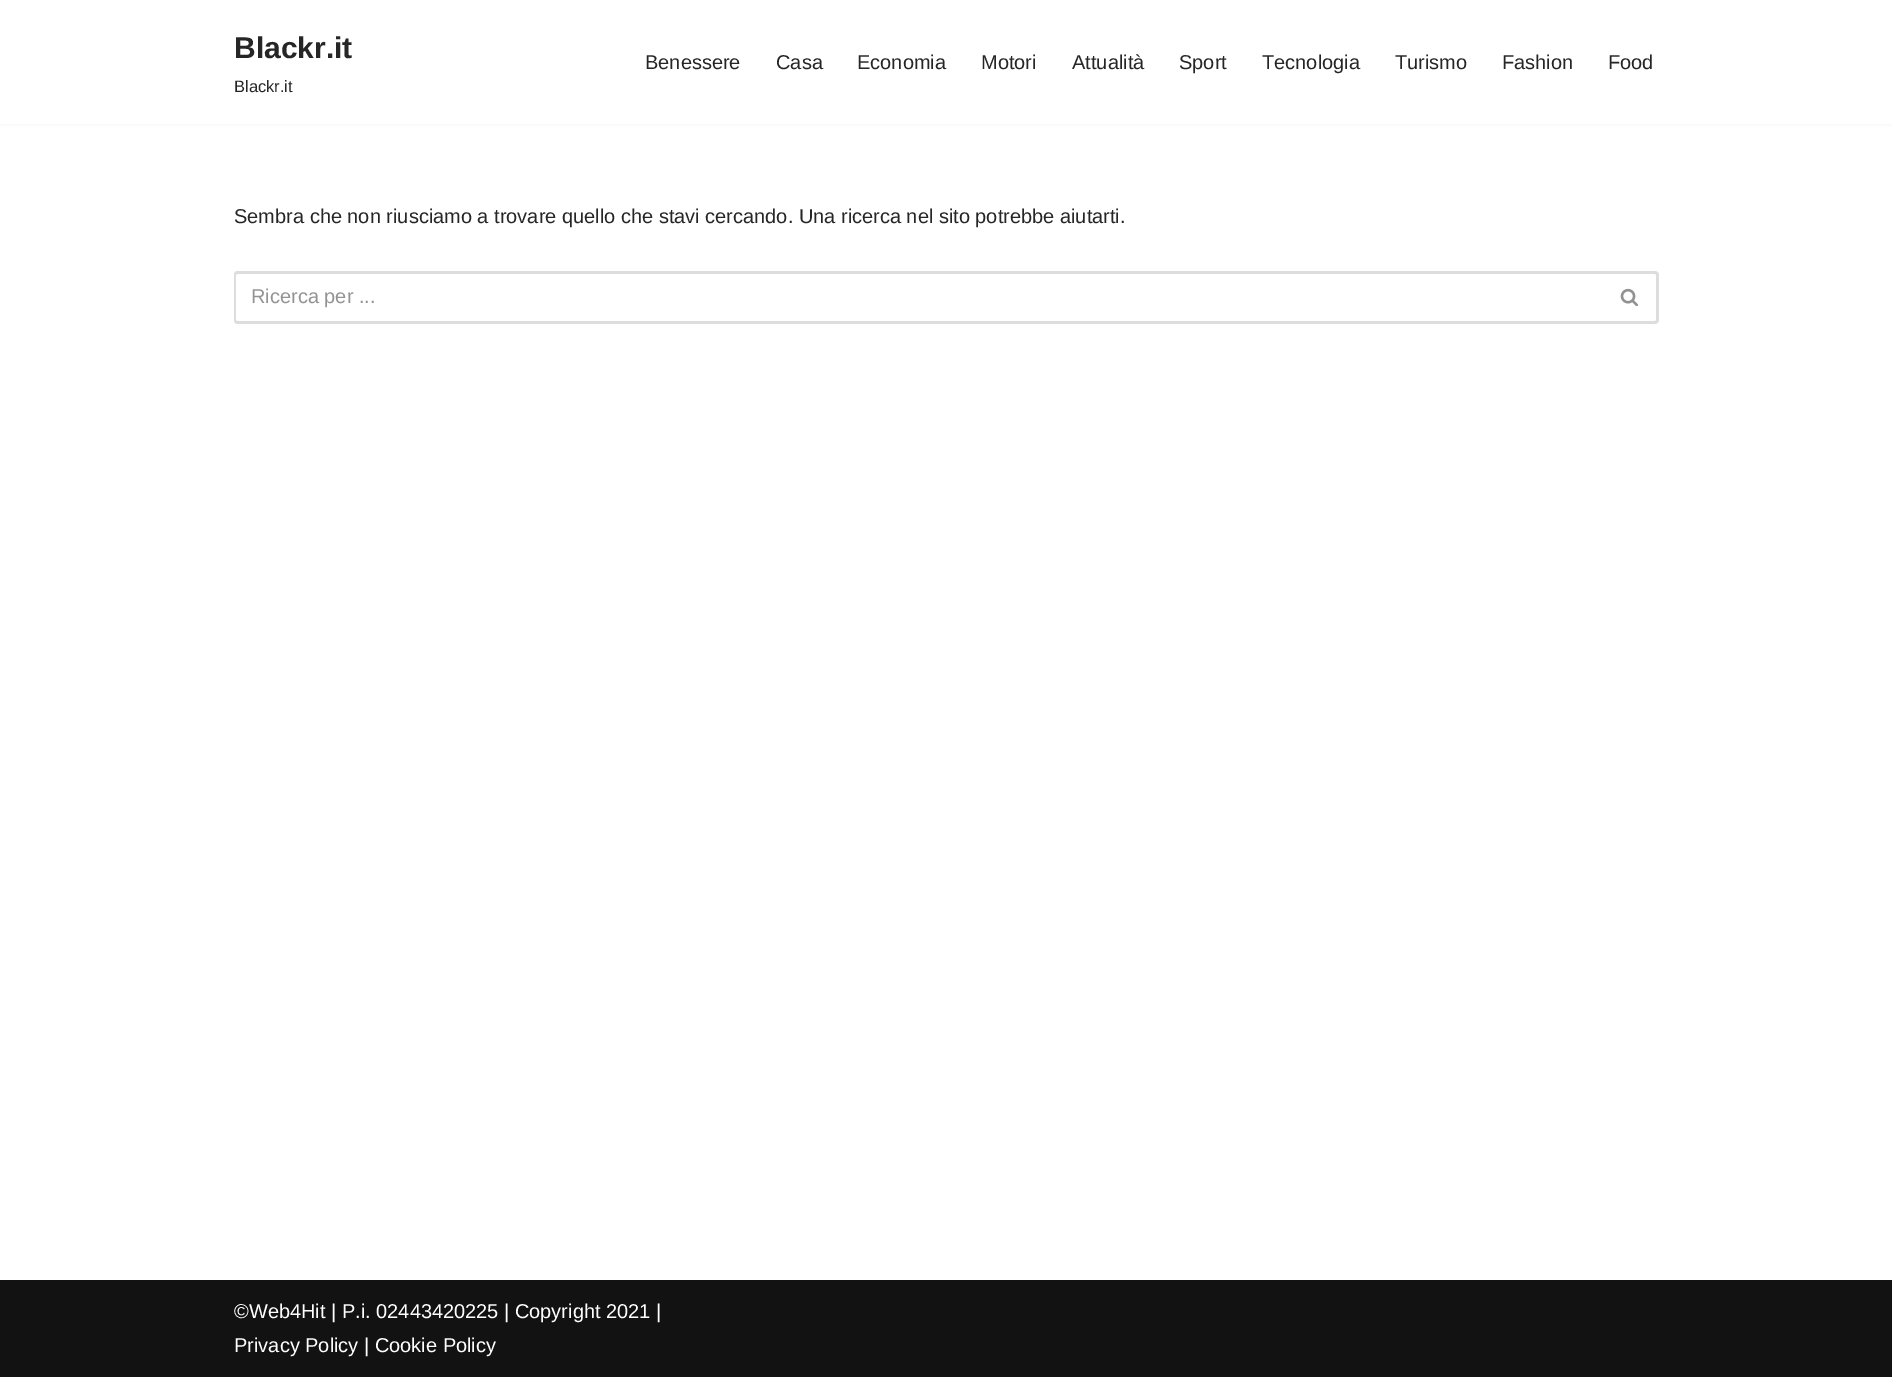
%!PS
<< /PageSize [1892 1377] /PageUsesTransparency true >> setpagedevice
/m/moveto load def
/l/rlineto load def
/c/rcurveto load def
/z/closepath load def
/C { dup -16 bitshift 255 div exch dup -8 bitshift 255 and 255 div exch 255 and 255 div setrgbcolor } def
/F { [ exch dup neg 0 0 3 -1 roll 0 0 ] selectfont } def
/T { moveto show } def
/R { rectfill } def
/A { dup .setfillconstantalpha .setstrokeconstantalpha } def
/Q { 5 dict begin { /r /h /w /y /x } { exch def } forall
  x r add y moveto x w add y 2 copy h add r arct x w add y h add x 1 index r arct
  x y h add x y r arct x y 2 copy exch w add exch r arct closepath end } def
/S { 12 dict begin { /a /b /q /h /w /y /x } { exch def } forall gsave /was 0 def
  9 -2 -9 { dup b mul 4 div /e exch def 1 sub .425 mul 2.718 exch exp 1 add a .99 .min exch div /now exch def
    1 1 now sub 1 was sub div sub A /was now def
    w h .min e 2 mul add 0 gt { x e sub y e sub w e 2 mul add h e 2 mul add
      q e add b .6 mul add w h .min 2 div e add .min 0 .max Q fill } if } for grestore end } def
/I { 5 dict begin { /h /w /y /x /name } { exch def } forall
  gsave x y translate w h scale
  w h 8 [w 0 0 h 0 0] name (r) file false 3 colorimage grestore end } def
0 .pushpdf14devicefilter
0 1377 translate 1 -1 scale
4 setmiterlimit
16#FFFFFF C
0 0 1892 1377 R
16#000000 C
0 -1 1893 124 0 2 .1 S
16#FFFFFF C
0 0 1892 124 R
/LiberationSans-Bold 30 F
16#272626 C
(Blackr.it) 234 58 T
/LiberationSans-Regular 16.5 F
(Blackr.it) 234 92 T
/LiberationSans-Regular 20 F
(Benessere) 645 69 T
(Casa) 776 69 T
(Economia) 857 69 T
(Motori) 981 69 T
(Attualità) 1072 69 T
(Sport) 1179 69 T
(Tecnologia) 1262 69 T
(Turismo) 1395 69 T
(Fashion) 1502 69 T
(Food) 1608 69 T
(Sembra che non riusciamo a trovare quello che stavi cercando. Una ricerca nel sito potrebbe aiutarti.) 234 223 T
16#DDDDDD C
238 271 m 1364 0 l 0 53 l -1364 0 l -3 0 -4 -2 -4 -4 c 0 -45 l 0 -2 1 -4 4 -4 c z 238 274 m 1364 0 l 0 47 l -1364 0 l -1 0 -2 0 -2 -1 c 0 -45 l 0 -1 1 -1 2 -1 c z eofill
16#939393 C
(Ricerca per ...) 251 303 T
16#DDDDDD C
1602 271 m 53 0 l 2 0 4 2 4 4 c 0 45 l 0 2 -2 4 -4 4 c -53 0 l z 1602 274 m 53 0 l 1 0 1 0 1 1 c 0 45 l 0 1 0 1 -1 1 c -53 0 l z eofill
(1.rgb) 1620 288 18 18 I
16#121212 C
0 1280 1892 97 R
16#FFFFFF C
(©Web4Hit | P.i. 02443420225 | Copyright 2021 |) 234 1318 T
(Privacy Policy | Cookie Policy) 234 1352 T
.poppdf14devicefilter showpage
